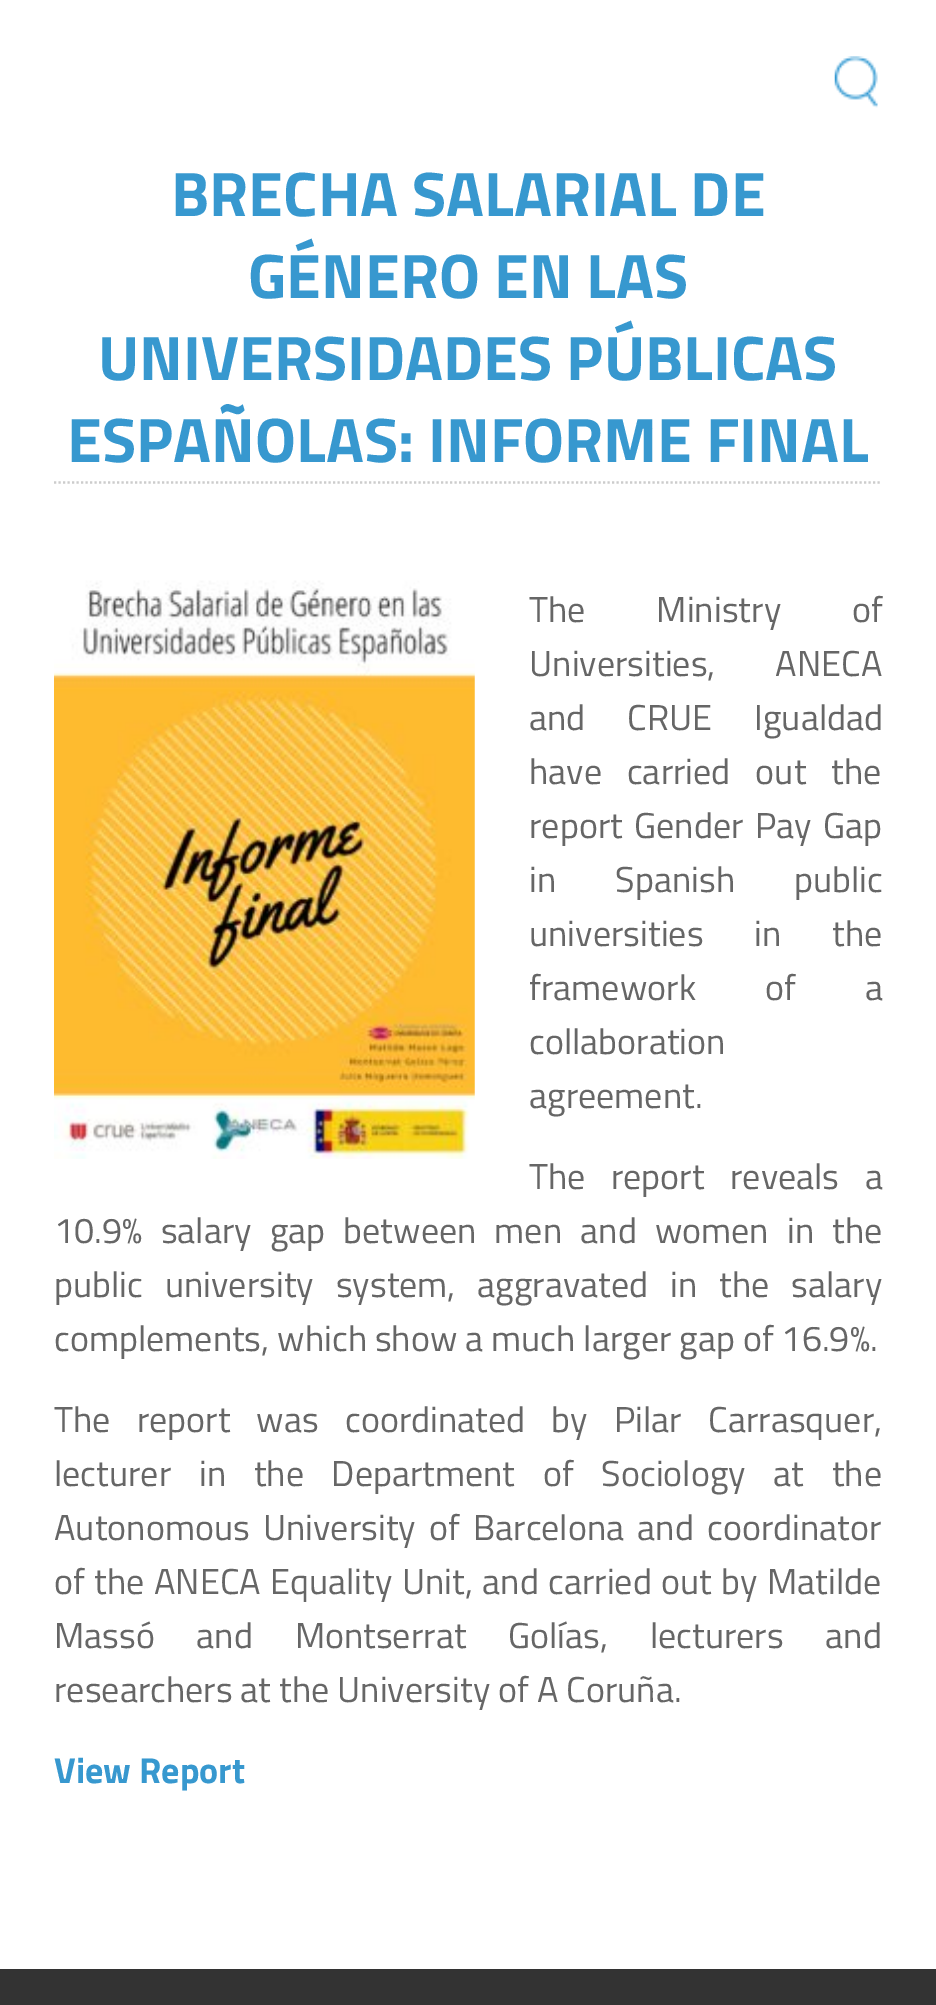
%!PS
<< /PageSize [936 2005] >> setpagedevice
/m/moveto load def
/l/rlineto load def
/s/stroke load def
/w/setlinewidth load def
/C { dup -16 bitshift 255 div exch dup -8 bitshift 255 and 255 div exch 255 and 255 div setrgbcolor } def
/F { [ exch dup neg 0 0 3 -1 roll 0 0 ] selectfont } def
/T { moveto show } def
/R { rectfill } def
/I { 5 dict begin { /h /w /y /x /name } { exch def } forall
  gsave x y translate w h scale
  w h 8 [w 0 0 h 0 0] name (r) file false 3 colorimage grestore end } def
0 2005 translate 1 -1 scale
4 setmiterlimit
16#FFFFFF C
0 0 936 2005 R
(1.rgb) 834 56 44 52 I
16#CCCCCC C
2.2 w
[2.25 2.25] 0 setdash
54 482.5 m 828 0 l s
/TitilliumWeb-Bold 63 F
16#3798CF C
(BRECHA SALARIAL DE) 171 216 T
(GÉNERO EN LAS) 248 298 T
(UNIVERSIDADES PÚBLICAS) 98 380 T
(ESPAÑOLAS: INFORME FINAL) 67 462 T
(2.rgb) 54 580 421 579 I
/TitilliumWeb-Regular 36 F
16#666666 C
529 622 m 63 0 32 (The Ministry of) widthshow
529 676 m 52 0 32 (Universities, ANECA) widthshow
529 730 m 34 0 32 (and CRUE Igualdad) widthshow
529 784 m 17 0 32 (have carried out the) widthshow
529 838 m 3.5 0 32 (report Gender Pay Gap) widthshow
529 892 m 51 0 32 (in Spanish public) widthshow
529 946 m 43 0 32 (universities in the) widthshow
529 1000 m 61 0 32 (framework of a) widthshow
(collaboration) 529 1054 T
(agreement.) 529 1108 T
529 1189 m 17.5 0 32 (The report reveals a) widthshow
54 1243 m 10.25 0 32 (10.9% salary gap between men and women in the) widthshow
54 1297 m 14 0 32 (public university system, aggravated in the salary) widthshow
(complements, which show a much larger gap of 16.9%.) 54 1351 T
54 1432 m 18.25 0 32 (The report was coordinated by Pilar Carrasquer,) widthshow
54 1486 m 19.75 0 32 (lecturer in the Department of Sociology at the) widthshow
54 1540 m 5.25 0 32 (Autonomous University of Barcelona and coordinator) widthshow
54 1594 m 1.5 0 32 (of the ANECA Equality Unit, and carried out by Matilde) widthshow
54 1648 m 33.75 0 32 (Massó and Montserrat Golías, lecturers and) widthshow
(researchers at the University of A Coruña.) 54 1702 T
/TitilliumWeb-Bold 36 F
16#3798CF C
(View Report) 54 1783 T
16#333333 C
0 1969 936 36 R
showpage
